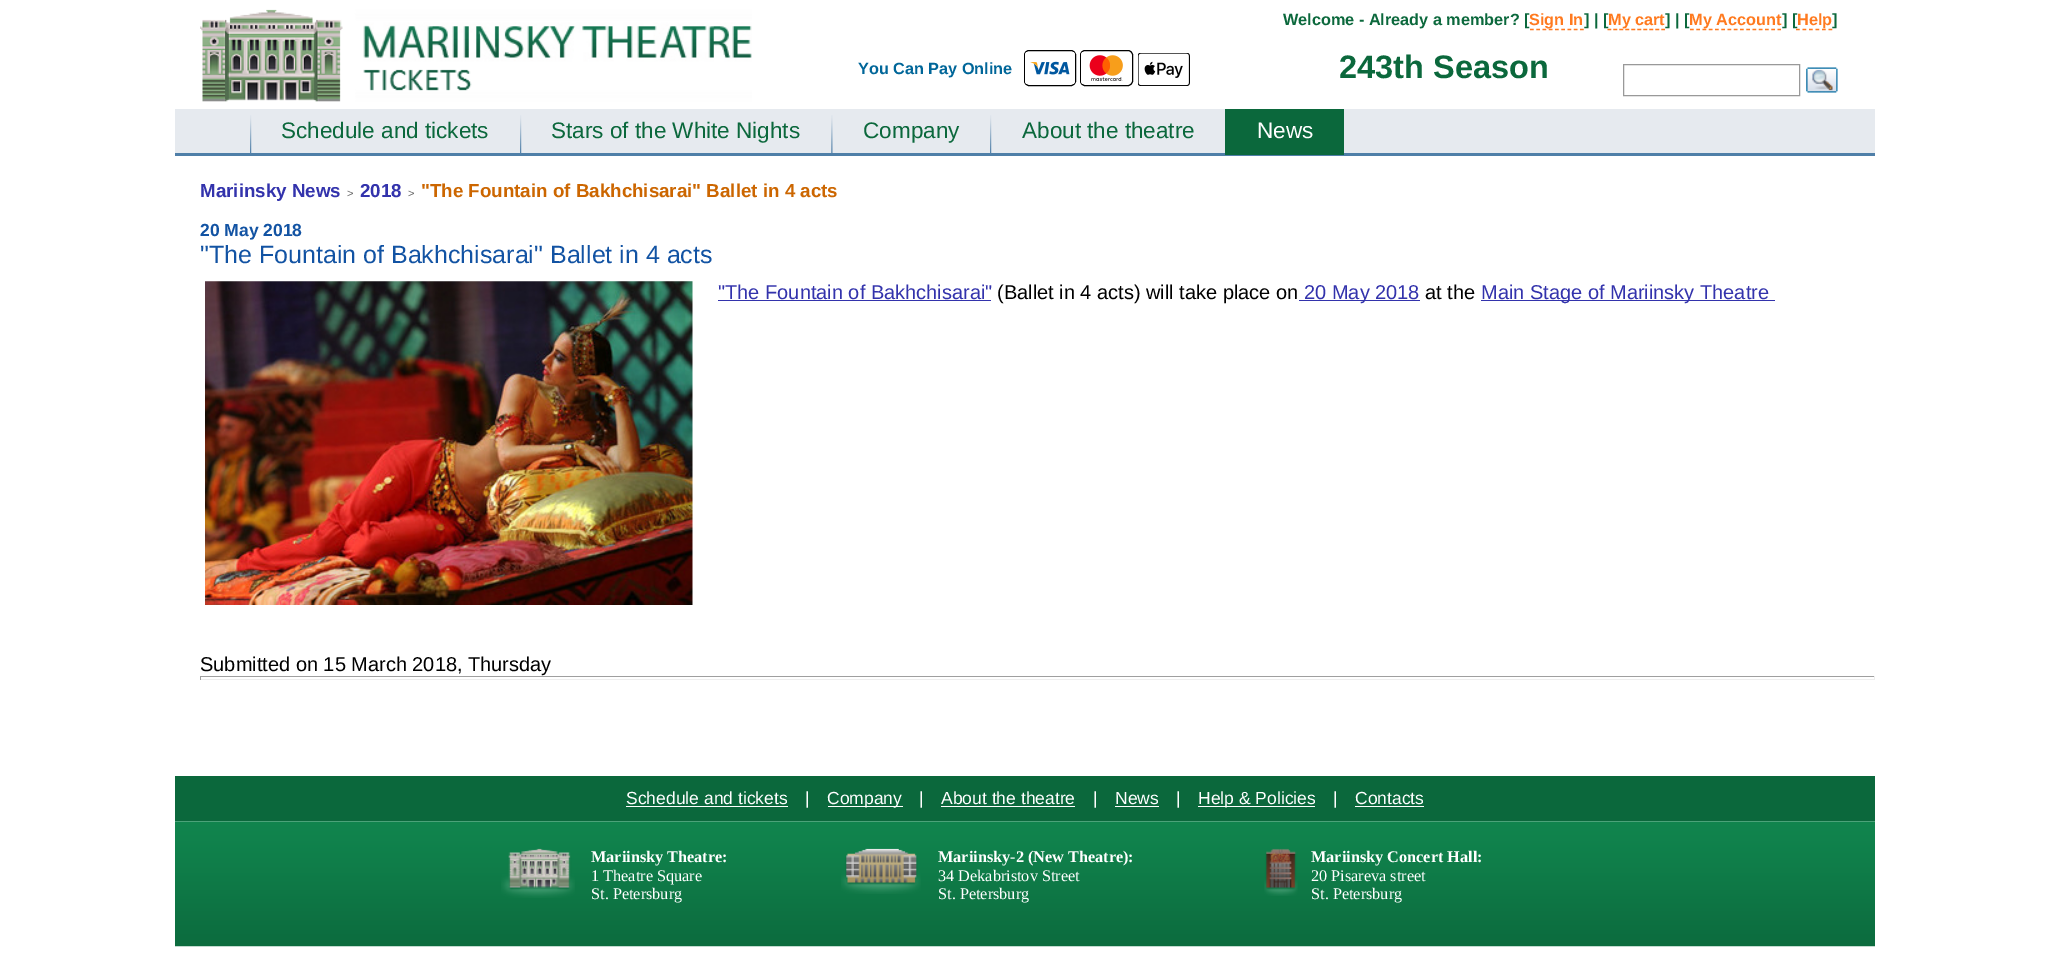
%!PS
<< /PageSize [2049 963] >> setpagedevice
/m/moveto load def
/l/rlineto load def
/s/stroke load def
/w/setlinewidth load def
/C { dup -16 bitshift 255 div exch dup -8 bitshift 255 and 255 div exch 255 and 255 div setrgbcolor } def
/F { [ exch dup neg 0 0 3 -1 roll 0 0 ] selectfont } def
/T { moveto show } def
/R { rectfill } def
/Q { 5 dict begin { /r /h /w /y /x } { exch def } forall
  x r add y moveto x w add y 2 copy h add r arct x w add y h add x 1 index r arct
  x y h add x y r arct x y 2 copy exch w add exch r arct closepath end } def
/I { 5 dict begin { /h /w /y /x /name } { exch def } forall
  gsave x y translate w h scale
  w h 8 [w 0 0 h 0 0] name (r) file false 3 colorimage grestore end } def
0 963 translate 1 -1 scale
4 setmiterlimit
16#FFFFFF C
0 0 2049 963 R
(1.rgb) 200 9 552 93 I
/LiberationSans-Bold 16.25 F
16#0B683C C
(Welcome - Already a member? [) 1283 25 T
16#FF7A1F C
1.2 w
[3.75 2.5] 0 setdash
1530 29.5 m 54 0 l s
(Sign In) 1529 25 T
16#0B683C C
(] | [) 1584 25 T
16#FF7A1F C
[3.75 2.23] 0 setdash
1607.5 29.5 m 57.5 0 l s
(My cart) 1608 25 T
16#0B683C C
(] | [) 1665 25 T
16#FF7A1F C
[3.75 2.5] 0 setdash
1690 29.5 m 91 0 l s
(My Account) 1689 25 T
16#0B683C C
(] [) 1782 25 T
16#FF7A1F C
[3.75 2.75] 0 setdash
1796 29.5 m 36.5 0 l s
(Help) 1797 25 T
16#0B683C C
(]) 1832 25 T
16#006699 C
(You Can Pay Online) 858 74 T
16#000000 C
1 w
[] 0 setdash
1024.5 50.5 51 35 4.5 Q s
1080.5 50.5 52 35 4.5 Q s
(2.rgb) 1025 52 50 32 I
(3.rgb) 1081 52 42 32 I
(4.rgb) 1138 53 52 33 I
/LiberationSans-Bold 32.5 F
16#0B683C C
(243th Season) 1339 78 T
16#999999 C
1623.5 64.5 176 31 rectstroke
(5.rgb) 1806 67 32 26 I
16#E6EAEF C
175 109 1700 44 R
16#4F7FA8 C
175 153 1700 3 R
(6.rgb) 250 115 2 39 I
/LiberationSans-Regular 22.5 F
16#0B683C C
(Schedule and tickets) 281 138 T
(6.rgb) 520 115 2 39 I
(Stars of the White Nights) 551 138 T
(7.rgb) 831 115 2 38 I
(Company) 863 138 T
(6.rgb) 990 115 2 39 I
(About the theatre) 1022 138 T
1225 109 119 46 R
16#FFFFFF C
(News) 1257 138 T
/LiberationSans-Bold 18.75 F
16#3333AC C
(Mariinsky News) 200 197 T
/LiberationSans-Regular 11 F
16#666666 C
(>) 347 197 T
/LiberationSans-Bold 18.75 F
16#3333AC C
(2018) 360 197 T
/LiberationSans-Regular 11 F
16#666666 C
(>) 408 197 T
/LiberationSans-Bold 18.75 F
16#CC6600 C
("The Fountain of Bakhchisarai" Ballet in 4 acts) 421 197 T
/LiberationSans-Bold 17.5 F
16#1253A3 C
(20 May 2018) 200 236 T
/LiberationSans-Regular 25 F
("The Fountain of Bakhchisarai" Ballet in 4 acts) 200 263 T
(8.rgb) 205 281 488 324 I
/LiberationSans-Regular 20 F
16#3333AC C
("The Fountain of Bakhchisarai") 718 299 T
718 300 273 1 R
16#000000 C
(\(Ballet in 4 acts\) will take place on) 997 299 T
16#3333AC C
1299 300 121 1 R
(20 May 2018) 1304 299 T
16#000000 C
(at the) 1425 299 T
16#3333AC C
1481 300 294 1 R
(Main Stage of Mariinsky Theatre) 1481 299 T
16#000000 C
(Submitted on 15 March 2018, Thursday) 200 671 T
16#9F9F9F C
200 676 1675 1 R
16#EEEEEE C
1874 676 1 4 R
200 679 1675 1 R
16#9F9F9F C
200 676 1 4 R
16#0B683C C
175 776 1700 45 R
/LiberationSans-Regular 17.5 F
16#FFFFFF C
(Schedule and tickets) 626 804 T
626 806 162 1 R
(|) 805 804 T
828 806 75 1 R
(Company) 827 804 T
(|) 919 804 T
(About the theatre) 941 804 T
941 806 134 1 R
(|) 1093 804 T
(News) 1115 804 T
1115 806 44 1 R
(|) 1176 804 T
1198 806 117 1 R
(Help & Policies) 1198 804 T
(|) 1333 804 T
(Contacts) 1355 804 T
1355 806 69 1 R
(9.rgb) 175 821 1700 126 I
(10.rgb) 501 848 74 50 I
/LiberationSerif-Bold 16.25 F
(Mariinsky Theatre:) 591 862 T
/LiberationSerif-Regular 16.25 F
(1 Theatre Square) 591 881 T
(St. Petersburg) 591 899 T
(11.rgb) 841 848 80 46 I
/LiberationSerif-Bold 16.25 F
(Mariinsky-2 \(New Theatre\):) 938 862 T
/LiberationSerif-Regular 16.25 F
(34 Dekabristov Street) 938 881 T
(St. Petersburg) 938 899 T
(12.rgb) 1264 848 34 48 I
/LiberationSerif-Bold 16.25 F
(Mariinsky Concert Hall:) 1311 862 T
/LiberationSerif-Regular 16.25 F
(20 Pisareva street) 1311 881 T
(St. Petersburg) 1311 899 T
showpage
